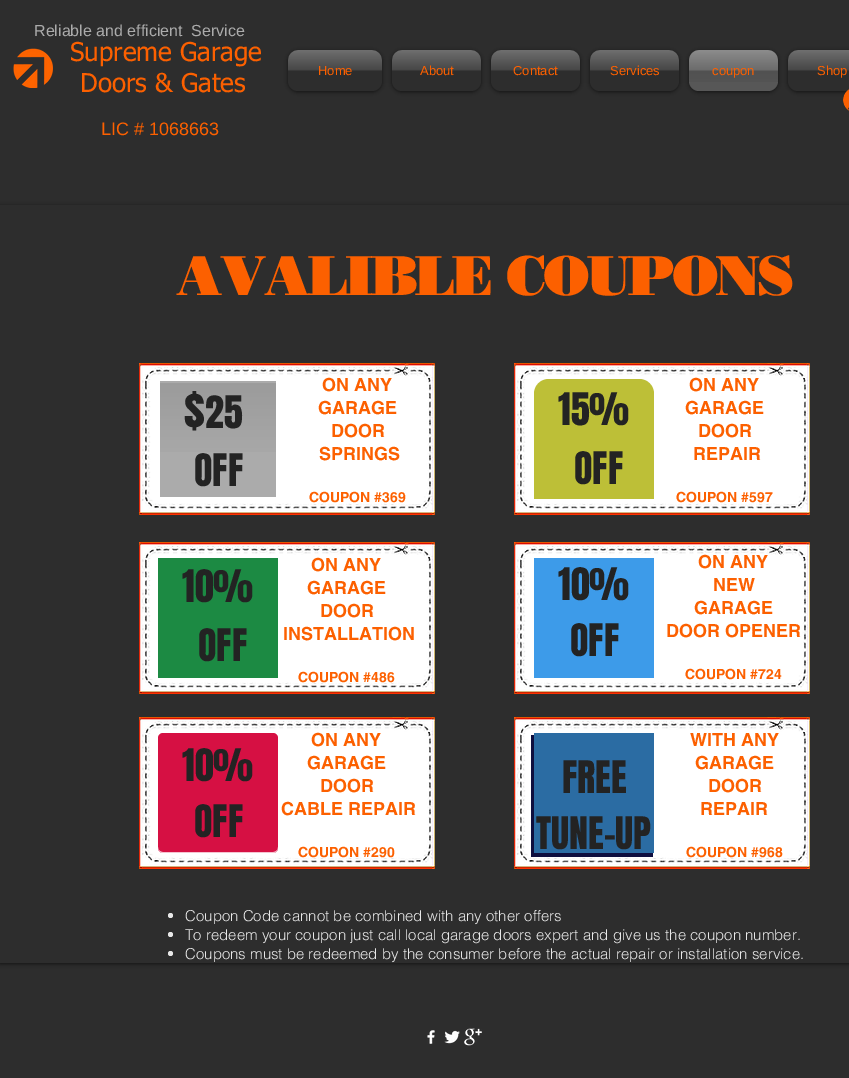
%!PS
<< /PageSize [849 1078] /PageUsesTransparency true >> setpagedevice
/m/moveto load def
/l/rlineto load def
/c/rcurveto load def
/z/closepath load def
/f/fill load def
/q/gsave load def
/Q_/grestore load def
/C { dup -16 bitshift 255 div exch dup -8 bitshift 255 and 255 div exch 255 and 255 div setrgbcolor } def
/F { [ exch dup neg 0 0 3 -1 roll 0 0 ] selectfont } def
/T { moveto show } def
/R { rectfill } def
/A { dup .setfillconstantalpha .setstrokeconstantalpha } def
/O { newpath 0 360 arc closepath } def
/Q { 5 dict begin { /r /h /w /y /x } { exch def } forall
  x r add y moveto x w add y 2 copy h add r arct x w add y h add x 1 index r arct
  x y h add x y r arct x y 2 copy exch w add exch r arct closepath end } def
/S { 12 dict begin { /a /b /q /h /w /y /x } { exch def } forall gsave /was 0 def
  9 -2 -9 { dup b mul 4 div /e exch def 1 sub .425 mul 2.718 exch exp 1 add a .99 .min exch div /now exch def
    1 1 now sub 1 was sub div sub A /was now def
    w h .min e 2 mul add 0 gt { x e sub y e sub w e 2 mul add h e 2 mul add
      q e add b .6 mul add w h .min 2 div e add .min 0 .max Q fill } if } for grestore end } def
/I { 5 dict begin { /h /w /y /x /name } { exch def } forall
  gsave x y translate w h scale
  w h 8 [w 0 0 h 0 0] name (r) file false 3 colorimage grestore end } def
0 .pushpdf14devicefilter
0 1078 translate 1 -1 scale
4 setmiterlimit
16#2D2D2D C
0 0 849 1078 R
/LiberationSans-Regular 16 F
16#ABABAB C
(Reliable and efficient  Service) 34 36 T
(1.rgb) 13 48 40 40 I
/tahoma-Regular 26 F
16#FC6000 C
(Supreme Garage) 70 61 T
(Doors & Gates) 80 92 T
16#000000 C
288 51 94 41 10 2 .6 S
16#2D2D2D C
288 50 94 41 10 Q f
(2.rgb) 288 50 94 21 I
/LiberationSans-Regular 13 F
16#FC6000 C
(Home) 318 75 T
16#000000 C
392 51 89 41 10 2 .6 S
16#2D2D2D C
392 50 89 41 10 Q f
(3.rgb) 392 50 89 21 I
16#FC6000 C
(About) 420 75 T
16#000000 C
491 51 89 41 10 2 .6 S
16#2D2D2D C
491 50 89 41 10 Q f
(3.rgb) 491 50 89 21 I
16#FC6000 C
(Contact) 513 75 T
16#000000 C
590 51 89 41 10 2 .6 S
16#2D2D2D C
590 50 89 41 10 Q f
(3.rgb) 590 50 89 21 I
16#FC6000 C
(Services) 610 75 T
16#000000 C
689 51 89 41 10 2 .6 S
16#575757 C
689 50 89 41 10 Q f
(4.rgb) 689 50 89 32 I
16#FC6000 C
(coupon) 712 75 T
16#000000 C
788 51 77 41 10 2 .6 S
16#2D2D2D C
788 50 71 41 10 Q f
(5.rgb) 788 50 61 21 I
16#FC6000 C
(Shop) 817 75 T
(6.rgb) 843 89 6 22 I
/LiberationSans-Regular 18 F
(LIC # 1068663) 101 135 T
q
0 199 m 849 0 l 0 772 l -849 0 l z 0 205 m 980 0 l 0 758 l -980 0 l z eoclip newpath
16#000000 C
0 206 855 758 0 2 .6 S
Q_
/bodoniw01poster-Black 56 F
176 295 m -2.75 0 (AVALIBLE COUPONS) ashow
(7.rgb) 139 363 296 152 I
(7.rgb) 514 363 296 152 I
16#ABABAB C
160 381 116 116 R
(8.rgb) 160 383 116 69 I
/helvetica-Bold 18 F
16#FC6000 C
(ON ANY) 322 391 T
(GARAGE) 318 414 T
(DOOR) 331 437 T
(SPRINGS) 319 460 T
/helvetica-Bold 14 F
(COUPON #369) 309 502 T
16#BDBF37 C
549 379 m 90 0 l 8.5 0 15 6.5 15 15 c 0 105 l -120 0 l 0 -105 l 0 -8.5 6.5 -15 15 -15 c z f
/helvetica-Bold 18 F
16#FC6000 C
(ON ANY) 689 391 T
(GARAGE) 685 414 T
(DOOR) 698 437 T
(REPAIR) 693 460 T
/helvetica-Bold 14 F
(COUPON #597) 676 502 T
/Anton-Regular 45 F
16#232323 C
($) 184 428 T
/Anton-Regular 38 F
(25) 205 428 T
(OFF) 194 486 T
(15%) 558 425 T
(OFF) 574 484 T
(7.rgb) 139 542 296 152 I
(7.rgb) 514 542 296 152 I
16#1C8A43 C
158 558 120 120 R
/helvetica-Bold 18 F
16#FC6000 C
(ON ANY) 311 571 T
(GARAGE) 307 594 T
(DOOR) 320 617 T
(INSTALLATION) 283 640 T
/helvetica-Bold 14 F
(COUPON #486) 298 682 T
16#3D9BE9 C
534 558 120 120 R
/helvetica-Bold 18 F
16#FC6000 C
(ON ANY) 698 568 T
(NEW) 713 591 T
(GARAGE) 694 614 T
(DOOR OPENER) 666 637 T
/helvetica-Bold 14 F
(COUPON #724) 685 679 T
/Anton-Regular 38 F
16#232323 C
(10%) 182 602 T
(OFF) 198 661 T
(10%) 558 600 T
(OFF) 570 656 T
(7.rgb) 139 717 296 152 I
(7.rgb) 514 717 296 152 I
16#D61043 C
158 733 120 120 5 Q f
0.75 A
16#FFFFFF C
158 847 m 0 11 19 6 23 6 c 74 0 l 4 0 23 5 23 -6 c 0 3 -2 5 -5 5 c -110 0 l -3 0 -5 -2 -5 -5 c z f
1 A
16#232323 C
(10%) 182 781 T
(OFF) 194 837 T
/helvetica-Bold 18 F
16#FC6000 C
(ON ANY) 311 746 T
(GARAGE) 307 769 T
(DOOR) 320 792 T
(CABLE REPAIR) 281 815 T
/helvetica-Bold 14 F
(COUPON #290) 298 857 T
16#0E0E3F C
531 735 m 0 122 l 122 0 l 0 -4 l -119 0 l 0 -118 l z f
16#2B6CA3 C
534 733 120 120 R
/helvetica-Bold 18 F
16#FC6000 C
(WITH ANY) 690 746 T
(GARAGE) 695 769 T
(DOOR) 708 792 T
(REPAIR) 700 815 T
/helvetica-Bold 14 F
(COUPON #968) 686 857 T
/Anton-Regular 38 F
16#232323 C
(FREE) 562 793 T
(TUNE-UP) 536 849 T
16#E8E8E8 C
170.5 915.5 2.5 O f
/helvetica-Light 15 F
(Coupon Code cannot be combined with any other offers) 185 921 T
170.5 934.5 2.5 O f
(To redeem your coupon just call local garage doors expert and give us the coupon number.) 185 940 T
170.5 953.5 2.5 O f
(Coupons must be redeemed by the consumer before the actual repair or installation service.) 185 959 T
(9.rgb) 427 1030 8 14 I
(10.rgb) 444 1030 16 14 I
(11.rgb) 464 1028 18 18 I
.poppdf14devicefilter showpage
